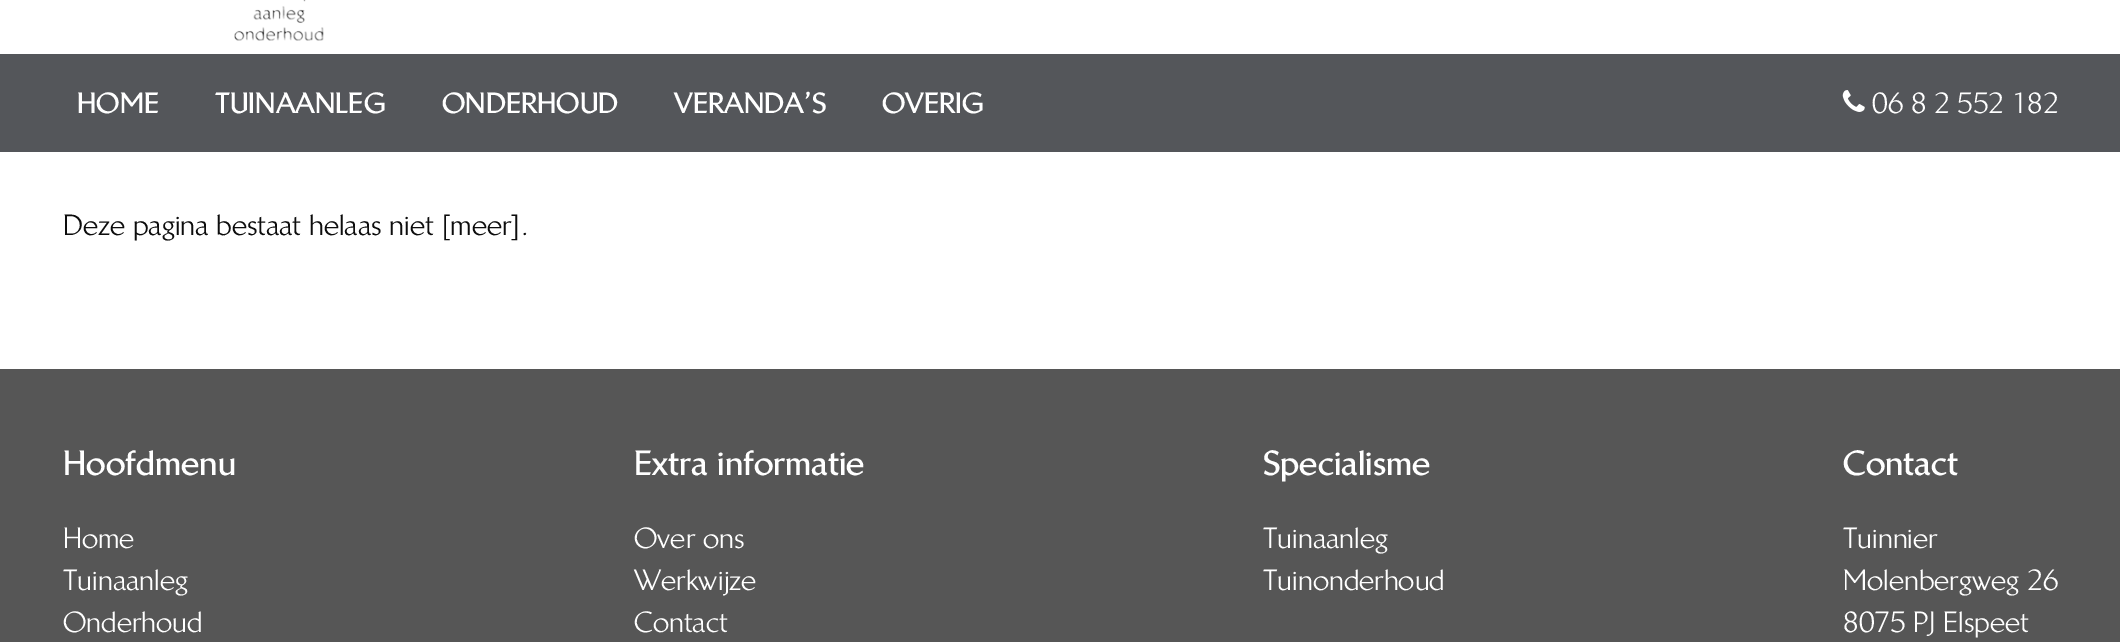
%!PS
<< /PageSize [2120 642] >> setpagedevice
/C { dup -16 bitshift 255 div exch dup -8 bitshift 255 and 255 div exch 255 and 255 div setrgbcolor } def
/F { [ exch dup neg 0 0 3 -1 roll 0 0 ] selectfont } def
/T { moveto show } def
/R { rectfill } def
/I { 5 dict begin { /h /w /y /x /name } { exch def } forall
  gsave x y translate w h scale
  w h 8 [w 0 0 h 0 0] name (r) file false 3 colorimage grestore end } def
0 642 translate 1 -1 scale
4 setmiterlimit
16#FFFFFF C
0 0 2120 642 R
(1.rgb) 234 0 90 41 I
16#54565A C
0 54 2120 98 R
/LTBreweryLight-Bold 28 F
16#FFFFFF C
(HOME) 77 113 T
(TUINAANLEG) 215 113 T
(ONDERHOUD) 442 113 T
(VERANDA’S) 674 113 T
(OVERIG) 882 113 T
(2.rgb) 1842 90 23 22 I
/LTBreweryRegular-Regular 28 F
(06 8 2 552 182) 1872 113 T
16#0D0D0D C
(Deze pagina bestaat helaas niet [meer].) 63 235 T
16#565656 C
0 369 2120 273 R
/LTBreweryLight-Bold 33.5 F
16#FFFFFF C
(Hoofdmenu) 63 475 T
/LTBreweryRegular-Regular 28 F
(Home) 63 548 T
(Tuinaanleg) 63 590 T
(Onderhoud) 63 632 T
/LTBreweryLight-Bold 33.5 F
(Extra informatie) 634 475 T
/LTBreweryRegular-Regular 28 F
(Over ons) 634 548 T
(Werkwijze) 634 590 T
(Contact) 634 632 T
/LTBreweryLight-Bold 33.5 F
(Specialisme) 1263 475 T
/LTBreweryRegular-Regular 28 F
(Tuinaanleg) 1263 548 T
(Tuinonderhoud) 1263 590 T
/LTBreweryLight-Bold 33.5 F
(Contact) 1843 475 T
/LTBreweryRegular-Regular 28 F
(Tuinnier) 1843 548 T
(Molenbergweg 26) 1843 590 T
(8075 PJ Elspeet) 1843 632 T
showpage
